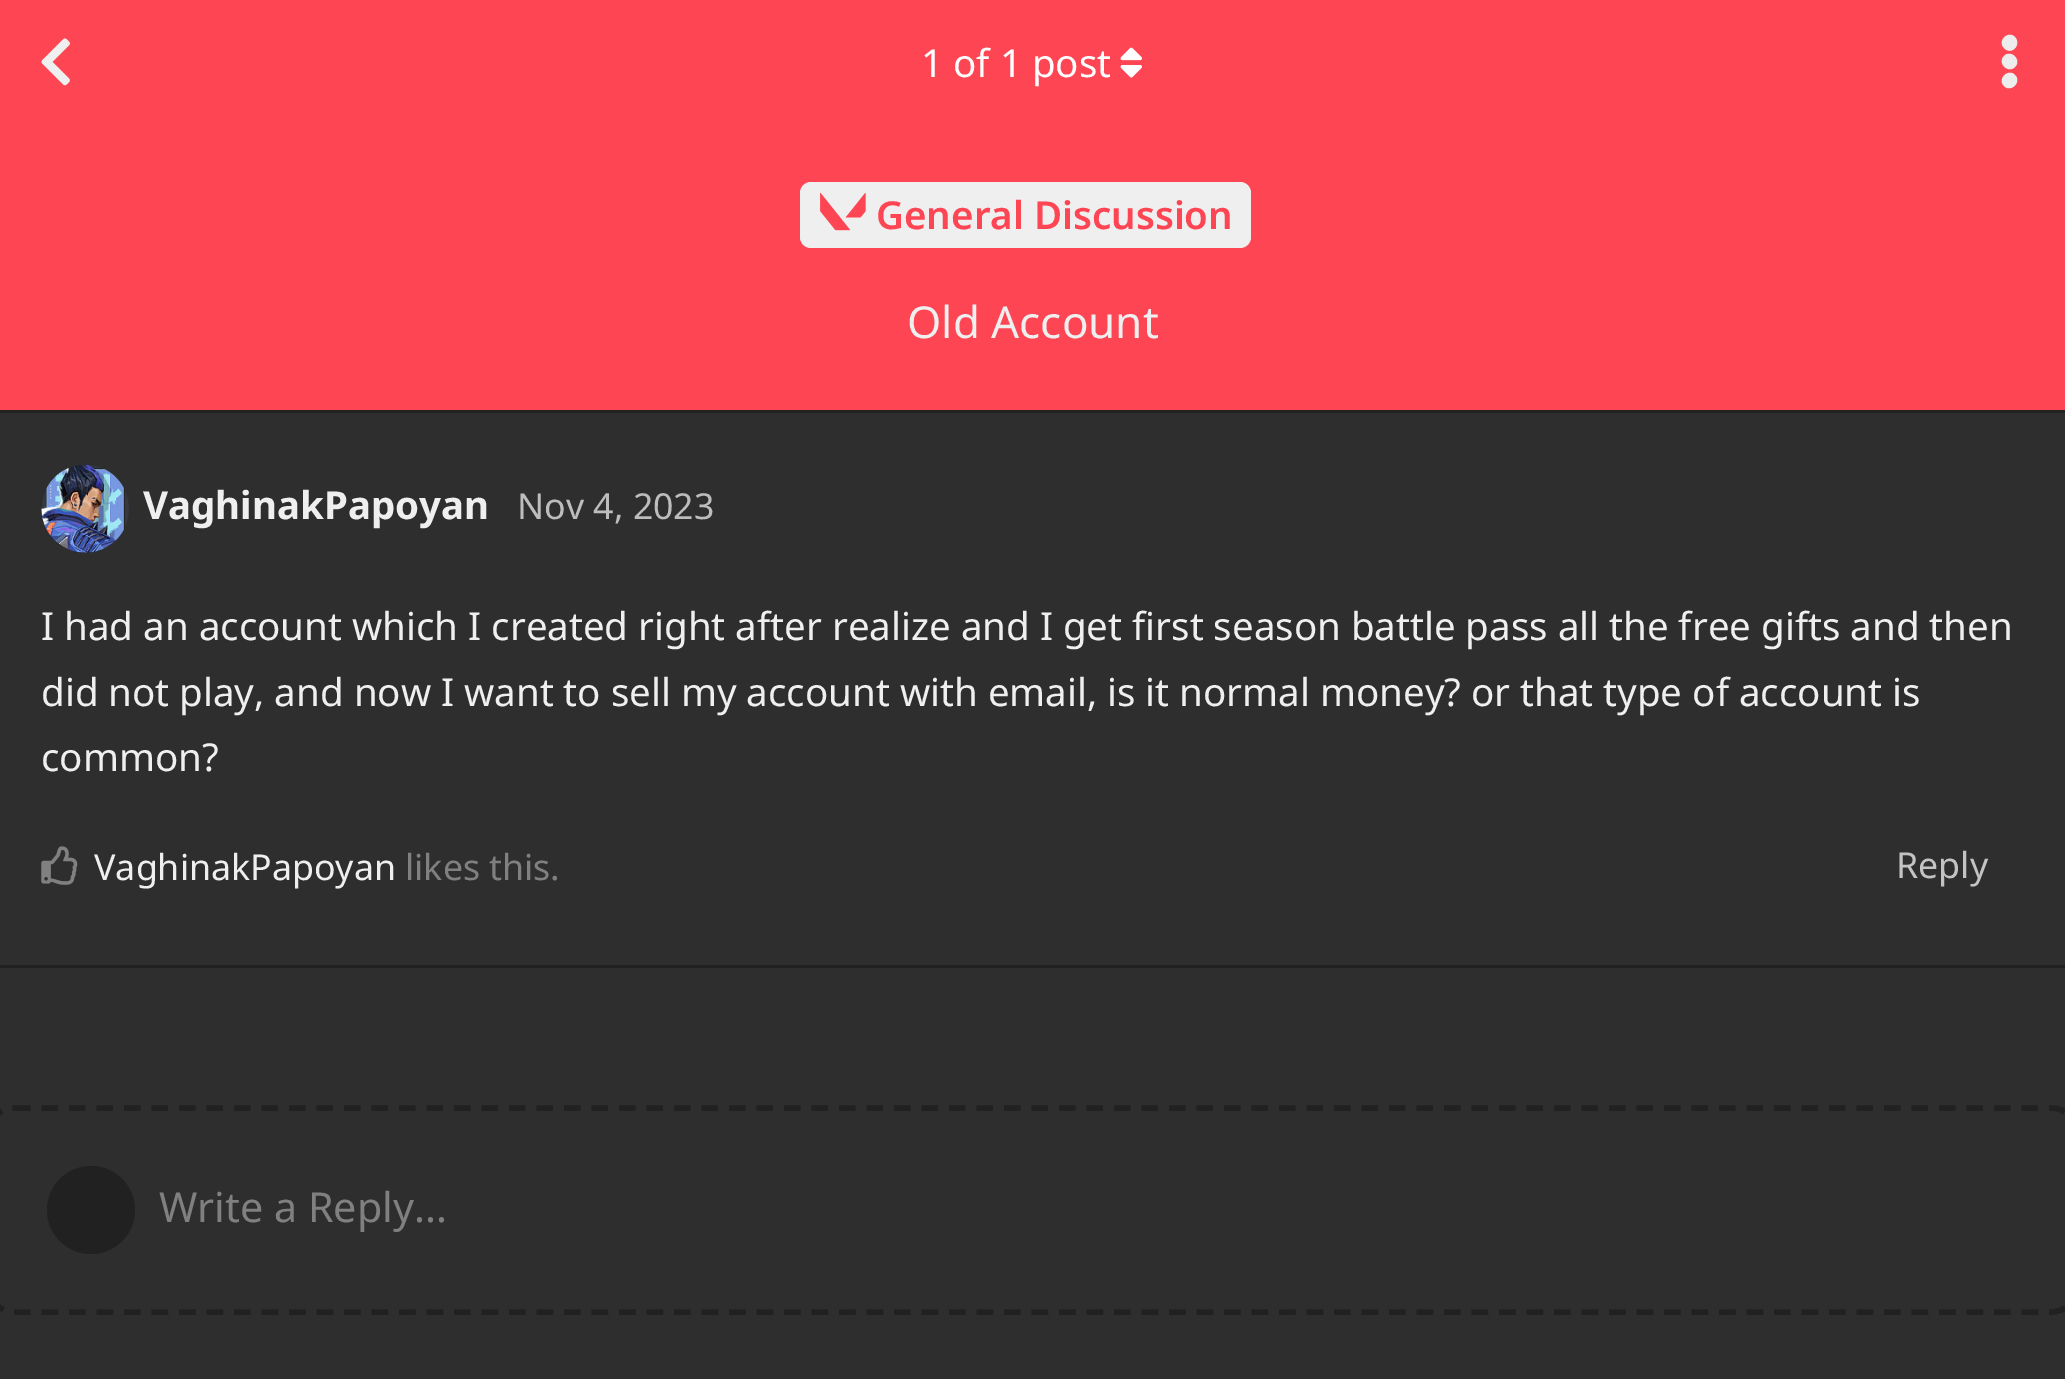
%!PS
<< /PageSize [2065 1379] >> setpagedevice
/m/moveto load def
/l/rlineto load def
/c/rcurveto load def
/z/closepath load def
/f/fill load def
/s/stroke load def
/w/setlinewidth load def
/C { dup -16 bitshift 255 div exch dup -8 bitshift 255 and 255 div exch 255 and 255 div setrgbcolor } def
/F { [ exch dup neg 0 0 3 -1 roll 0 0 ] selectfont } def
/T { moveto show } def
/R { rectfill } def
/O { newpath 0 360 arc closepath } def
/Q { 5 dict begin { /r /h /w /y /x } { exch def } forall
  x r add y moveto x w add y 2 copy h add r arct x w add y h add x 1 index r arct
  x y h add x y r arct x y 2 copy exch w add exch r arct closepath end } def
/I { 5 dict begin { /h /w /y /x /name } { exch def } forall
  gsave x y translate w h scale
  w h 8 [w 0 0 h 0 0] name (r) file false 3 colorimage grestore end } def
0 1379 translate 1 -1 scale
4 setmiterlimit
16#2E2E2E C
0 0 2065 1379 R
16#FE4553 C
0 0 2065 410 R
(1.rgb) 41 38 29 48 I
16#212121 C
0 410 2065 3 R
/NotoSans-Regular 38.5 F
16#FFFFFF C
(1 of 1 post) 921 77 T
(2.rgb) 1120 47 22 31 I
16#EDEDED C
2004 56 m 7 -7 18 4 11 11 c -7 7 -18 -4 -11 -11 c z 2004 48 m -7 -7 4 -18 11 -11 c 7 8 -4 19 -11 11 c z 2004 86 m -7 -7 4 -18 11 -11 c 7 7 -4 18 -11 11 c z f
16#212121 C
0 965 2065 3 R
85 509 44 O f
(3.rgb) 41 464 88 89 I
/NotoSans-Bold 38.5 F
16#EFEFEF C
(VaghinakPapoyan) 143 519 T
/NotoSans-Regular 35.75 F
16#BDBDBD C
(Nov 4, 2023) 517 519 T
/NotoSans-Regular 38.5 F
16#EFEFEF C
(I had an account which I created right after realize and I get first season battle pass all the free gifts and then) 41 640 T
(did not play, and now I want to sell my account with email, is it normal money? or that type of account is) 41 706 T
(common?) 41 771 T
(4.rgb) 41 846 37 39 I
/NotoSans-Regular 35.75 F
(VaghinakPapoyan) 94 880 T
16#808080 C
(likes this.) 405 880 T
16#C3C3C3 C
(Reply) 1896 878 T
16#212121 C
5.5 w
[16.5 11] 0 setdash
14 1108 m 2037.5 0 l 13.5 0 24.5 11.5 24.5 25 c 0 154 l 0 13.5 -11 25 -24.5 25 c -2037.5 0 l -14 0 -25 -11.5 -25 -25 c 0 -154 l 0 -13.5 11 -25 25 -25 c z s
91 1210 44 O f
/NotoSans-Regular 41.25 F
16#808080 C
(Write a Reply...) 159 1222 T
16#EFEFEF C
800 182 451 66 11 Q f
(5.rgb) 820 192 46 39 I
/NotoSans-SemiBold 38.5 F
16#FE4553 C
(General Discussion) 876 229 T
/NotoSans-Regular 44 F
16#EFEFEF C
(Old Account) 907 338 T
showpage
